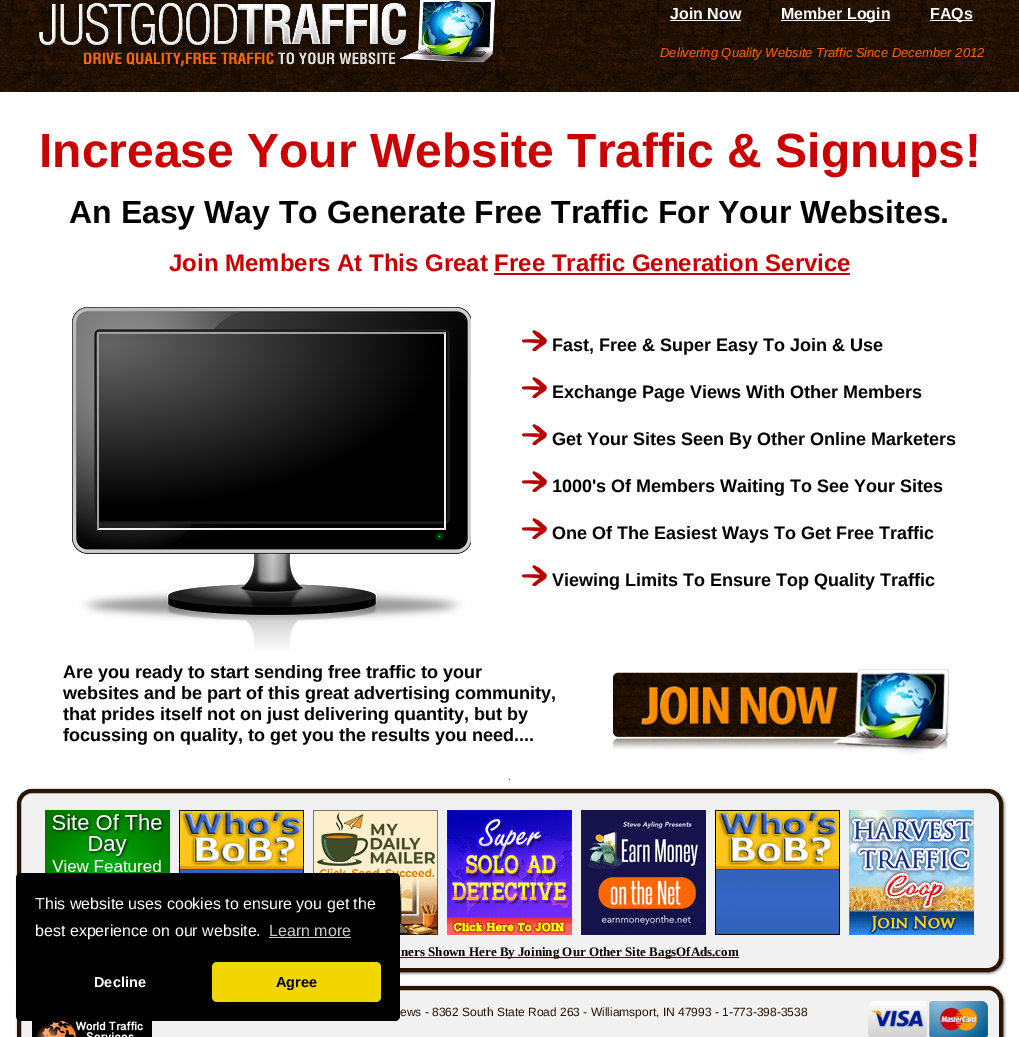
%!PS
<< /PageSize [1019 1037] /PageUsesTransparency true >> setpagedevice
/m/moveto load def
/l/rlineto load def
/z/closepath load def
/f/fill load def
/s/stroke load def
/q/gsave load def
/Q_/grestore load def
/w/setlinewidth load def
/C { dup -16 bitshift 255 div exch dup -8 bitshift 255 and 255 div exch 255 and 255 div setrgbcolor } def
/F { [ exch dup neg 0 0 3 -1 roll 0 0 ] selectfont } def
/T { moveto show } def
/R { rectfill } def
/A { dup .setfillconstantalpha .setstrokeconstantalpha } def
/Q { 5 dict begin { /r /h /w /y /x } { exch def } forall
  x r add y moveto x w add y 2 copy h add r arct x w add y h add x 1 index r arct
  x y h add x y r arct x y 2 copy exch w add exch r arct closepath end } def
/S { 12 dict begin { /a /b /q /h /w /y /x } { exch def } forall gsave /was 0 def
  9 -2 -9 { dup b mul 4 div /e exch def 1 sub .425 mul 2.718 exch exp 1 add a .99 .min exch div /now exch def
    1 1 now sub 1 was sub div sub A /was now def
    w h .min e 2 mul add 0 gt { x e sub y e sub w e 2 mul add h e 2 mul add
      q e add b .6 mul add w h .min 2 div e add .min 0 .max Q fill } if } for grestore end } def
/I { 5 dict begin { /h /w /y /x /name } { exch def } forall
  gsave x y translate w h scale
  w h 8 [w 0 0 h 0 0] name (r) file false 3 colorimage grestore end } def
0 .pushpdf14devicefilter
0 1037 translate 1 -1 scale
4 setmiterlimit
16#FFFFFF C
0 0 1019 1037 R
(1.rgb) 0 0 1019 92 I
(2.rgb) 39 0 456 67 I
/LiberationSans-Bold 16 F
(Join Now) 670 19 T
670 20 71 1 R
781 20 109 1 R
(Member Login) 781 19 T
930 20 43 1 R
(FAQs) 930 19 T
/LiberationSans-Italic 13 F
16#FF6400 C
(Delivering Quality Website Traffic Since December 2012) 660 57 T
/LiberationSans-Bold 48 F
16#CC0000 C
(Increase Your Website Traffic & Signups!) 39 167 T
/LiberationSans-Bold 32 F
16#000000 C
(An Easy Way To Generate Free Traffic For Your Websites.) 69 223 T
/LiberationSans-Bold 24 F
16#CC0000 C
(Join Members At This Great Free Traffic Generation Service) 169 271 T
494 273 356 2 R
(3.rgb) 72 307 399 343 I
16#9F9F9F C
97 332 m 349 0 l -2 2 l -345 0 l z f
16#EEEEEE C
446 332 m 0 198 l -2 -2 l 0 -194 l z f
446 530 m -349 0 l 2 -2 l 345 0 l z f
16#9F9F9F C
97 530 m 0 -198 l 2 2 l 0 194 l z f
(4.rgb) 522 330 25 21 I
/LiberationSans-Bold 18 F
16#000000 C
(Fast, Free & Super Easy To Join & Use) 552 351 T
(4.rgb) 522 377 25 21 I
(Exchange Page Views With Other Members) 552 398 T
(4.rgb) 522 424 25 21 I
(Get Your Sites Seen By Other Online Marketers) 552 445 T
(4.rgb) 522 471 25 21 I
(1000's Of Members Waiting To See Your Sites) 552 492 T
(4.rgb) 522 518 25 21 I
(One Of The Easiest Ways To Get Free Traffic) 552 539 T
(4.rgb) 522 565 25 21 I
(Viewing Limits To Ensure Top Quality Traffic) 552 586 T
(Are you ready to start sending free traffic to your) 63 678 T
(websites and be part of this great advertising community,) 63 699 T
(that prides itself not on just delivering quantity, but by) 63 720 T
(focussing on quality, to get you the results you need....) 63 741 T
(5.rgb) 613 669 336 86 I
/LiberationSans-Bold 10 F
16#808080 C
(.) 508 780 T
16#666666 C
18 790 986 183 15 1.5 1 S
16#F0F1F0 C
19 791 982 179 13 Q q f Q_
16#291401 C
4 w
s
(6.rgb) 45 810 125 63 I
(7.rgb) 179 810 125 63 I
(8.rgb) 313 810 125 125 I
(9.rgb) 447 810 125 125 I
(10.rgb) 581 810 125 125 I
(11.rgb) 715 810 125 125 I
(12.rgb) 849 810 125 125 I
16#0000EE C
400 957 339 1 R
/LiberationSerif-Bold 13 F
16#000000 C
(ners Shown Here By Joining Our Other Site BagsOfAds.com) 401 956 T
16#666666 C
18 987 986 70 15 1.5 1 S
16#F1F1F1 C
19 988 982 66 13 Q q f Q_
16#291401 C
s
/LiberationSans-Regular 12 F
16#281300 C
(ews - 8362 South State Road 263 - Williamsport, IN 47993 - 1-773-398-3538) 400 1016 T
(13.rgb) 868 1001 120 36 I
(14.rgb) 32 1021 120 16 I
16#000000 C
16 873 384 148 5 Q f
/LiberationSans-Regular 16 F
16#FFFFFF C
(This website uses cookies to ensure you get the) 35 909 T
(best experience on our website.) 35 936 T
16#CCCCCC C
(Learn more) 269 936 T
269 937 82 1 R
/LiberationSans-Bold 14.5 F
16#FFFFFF C
(Decline) 94 987 T
16#F1D600 C
212 962 169 40 5 Q f
16#000000 C
(Agree) 276 987 T
.poppdf14devicefilter showpage
